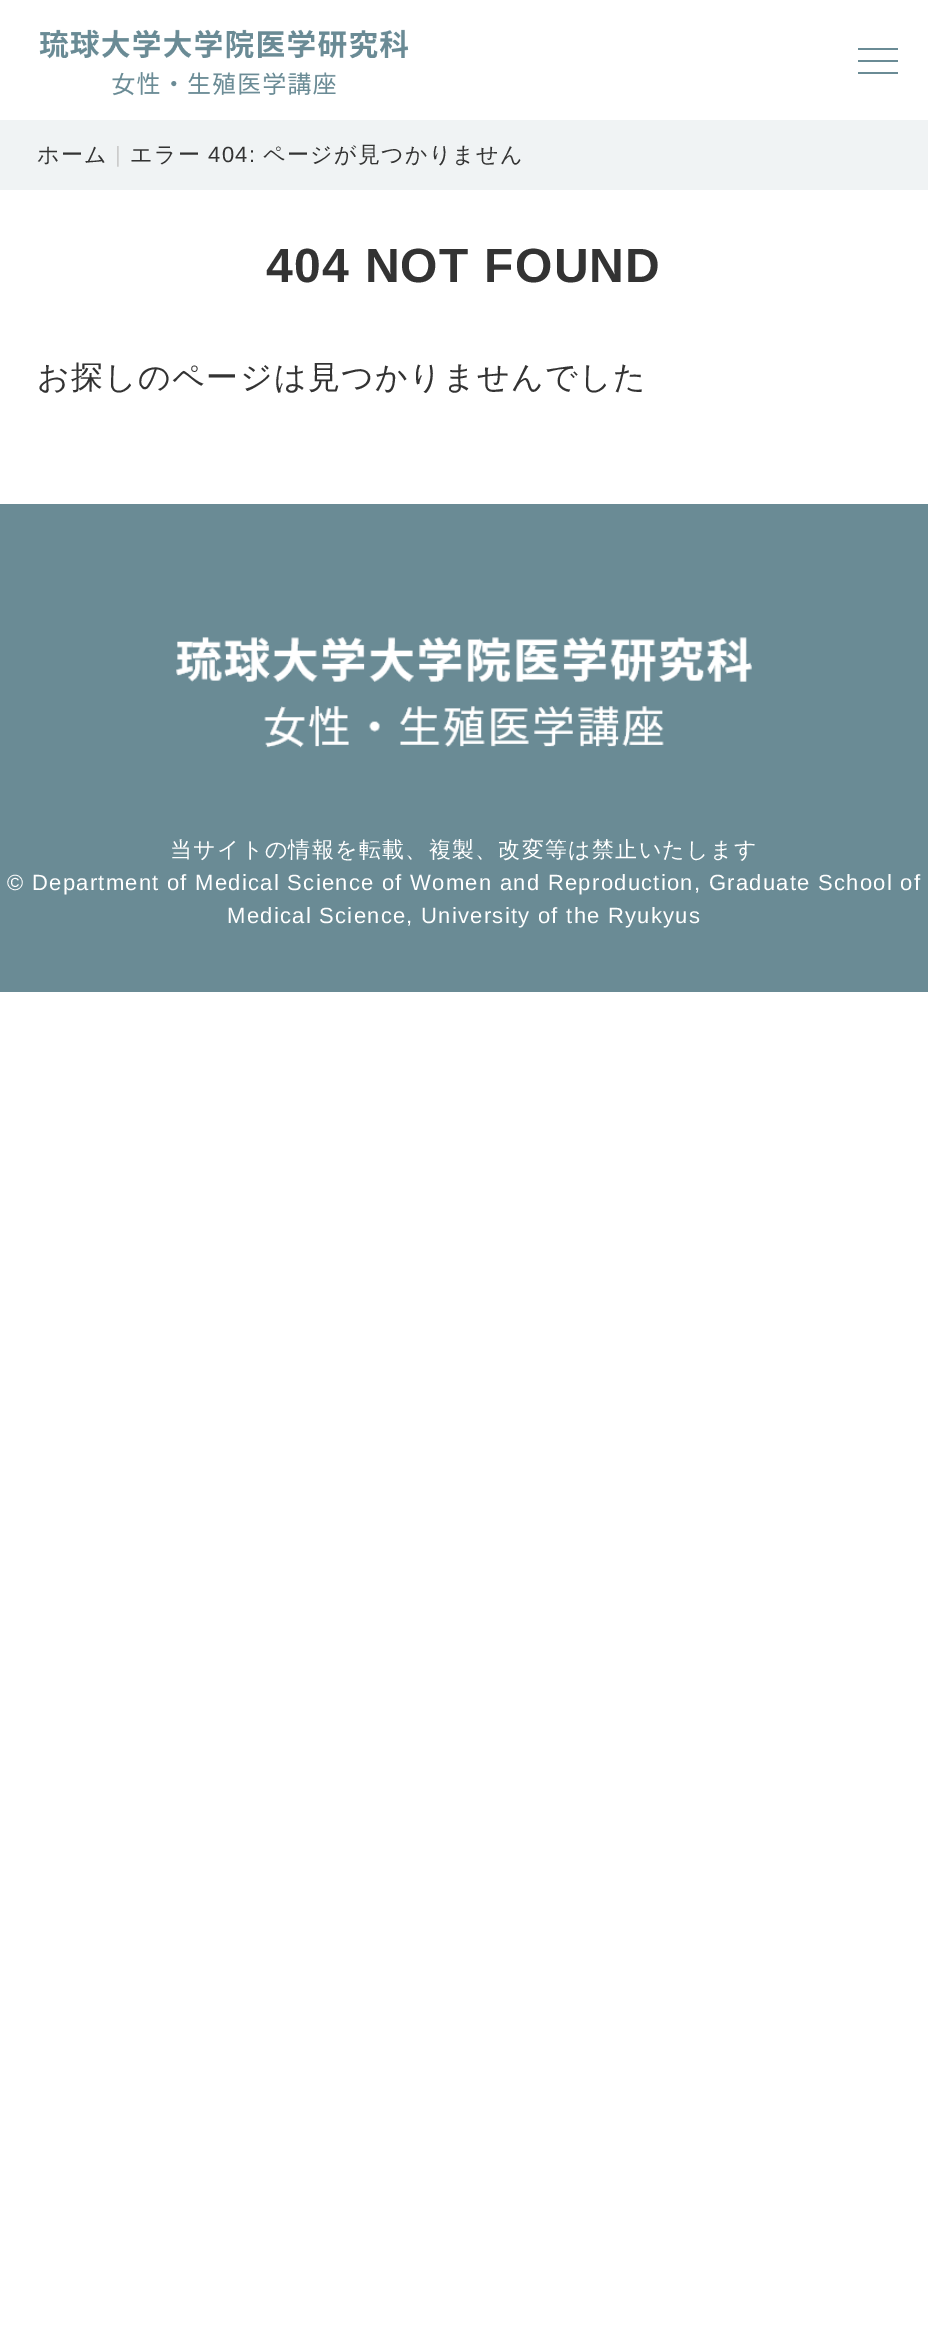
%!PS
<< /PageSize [928 2340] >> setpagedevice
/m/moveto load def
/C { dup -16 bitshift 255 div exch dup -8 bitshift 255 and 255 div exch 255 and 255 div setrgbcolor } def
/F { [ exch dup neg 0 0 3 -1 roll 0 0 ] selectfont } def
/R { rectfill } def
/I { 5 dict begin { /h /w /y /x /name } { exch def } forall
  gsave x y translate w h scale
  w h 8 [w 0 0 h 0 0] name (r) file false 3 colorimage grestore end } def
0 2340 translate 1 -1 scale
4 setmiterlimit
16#FFFFFF C
0 0 928 2340 R
(1.rgb) 39 29 370 67 I
16#6A8B95 C
858 48 40 2 R
858 60 40 2 R
858 72 40 2 R
16#F0F3F4 C
0 120 928 70 R
/WenQuanYiZenHei-Medium 22 F
16#333333 C
37 162 m 1.28 0 (ホーム) ashow
/LiberationSans-Regular 22 F
16#CCCCCC C
115 162 m 1.28 0 (|) ashow
/WenQuanYiZenHei-Medium 22 F
16#333333 C
130 162 m 1.28 0 (エラー) ashow
/LiberationSans-Regular 22 F
208 162 m 1.28 0 (404:) ashow
/WenQuanYiZenHei-Medium 22 F
263 162 m 1.28 0 (ページが見つかりません) ashow
/LiberationSans-Bold 48 F
266 282 m 1.28 0 (404 NOT FOUND) ashow
/WenQuanYiZenHei-Medium 32 F
37 388 m 1.28 0 (お探しのページは見つかりませんでした) ashow
16#6A8B95 C
0 504 928 488 R
(2.rgb) 176 637 576 111 I
/WenQuanYiZenHei-Medium 22 F
16#FFFFFF C
170 857 m 1.28 0 (当サイトの情報を転載、複製、改変等は禁止いたします) ashow
/LiberationSans-Regular 22 F
7 890 m 1.28 0 (© Department of Medical Science of Women and Reproduction, Graduate School of) ashow
227 923 m 1.28 0 (Medical Science, University of the Ryukyus) ashow
showpage
